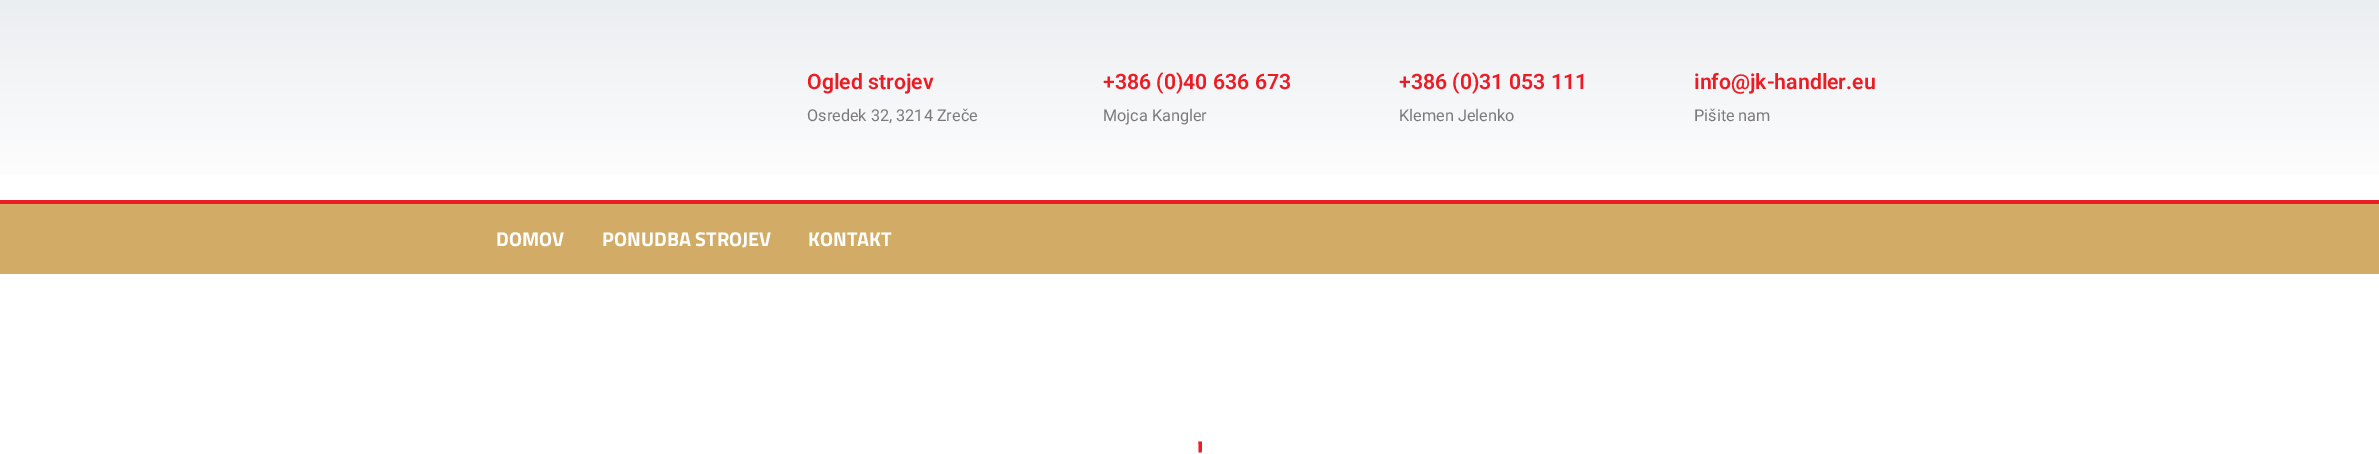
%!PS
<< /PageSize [2379 454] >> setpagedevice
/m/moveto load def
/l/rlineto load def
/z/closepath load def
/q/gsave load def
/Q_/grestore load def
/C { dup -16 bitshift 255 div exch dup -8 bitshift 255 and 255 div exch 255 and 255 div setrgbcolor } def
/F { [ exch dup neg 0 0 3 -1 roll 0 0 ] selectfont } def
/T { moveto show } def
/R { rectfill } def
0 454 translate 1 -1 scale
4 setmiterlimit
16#FFFFFF C
0 0 2379 454 R
q 0 0 m 2379 0 l 0 175 l -2379 0 l z clip newpath
<< /ShadingType 2 /ColorSpace /DeviceRGB /Coords [1190 0 1190 200] /Extend [true true] /Function << /FunctionType 2 /Domain [0 1] /C0 [.922 .933 .945] /C1 [1 1 1] /N 1 >> >> shfill Q_
/Roboto-SemiBold 21.25 F
16#ED1C24 C
(Ogled strojev) 807 89 T
/Roboto-Regular 16.25 F
16#7A7A7A C
(Osredek 32, 3214 Zreče) 807 121 T
/Roboto-SemiBold 21.25 F
16#ED1C24 C
(+386 \(0\)40 636 673) 1103 89 T
/Roboto-Regular 16.25 F
16#7A7A7A C
(Mojca Kangler) 1103 121 T
/Roboto-SemiBold 21.25 F
16#ED1C24 C
(+386 \(0\)31 053 111) 1399 89 T
/Roboto-Regular 16.25 F
16#7A7A7A C
(Klemen Jelenko) 1399 121 T
/Roboto-SemiBold 21.25 F
16#ED1C24 C
(info@jk-handler.eu) 1694 89 T
/Roboto-Regular 16.25 F
16#7A7A7A C
(Pišite nam) 1694 121 T
16#D2AC67 C
0 204 2379 70 R
16#ED1C24 C
0 200 2379 4 R
/TitilliumWeb-Bold 20 F
16#FFFFFF C
(DOMOV) 496 246 T
(PONUDBA STROJEV) 602 246 T
(KONTAKT) 808 246 T
/TitilliumWeb-Regular 50 F
16#ED1C24 C
(') 1195 476 T
showpage
